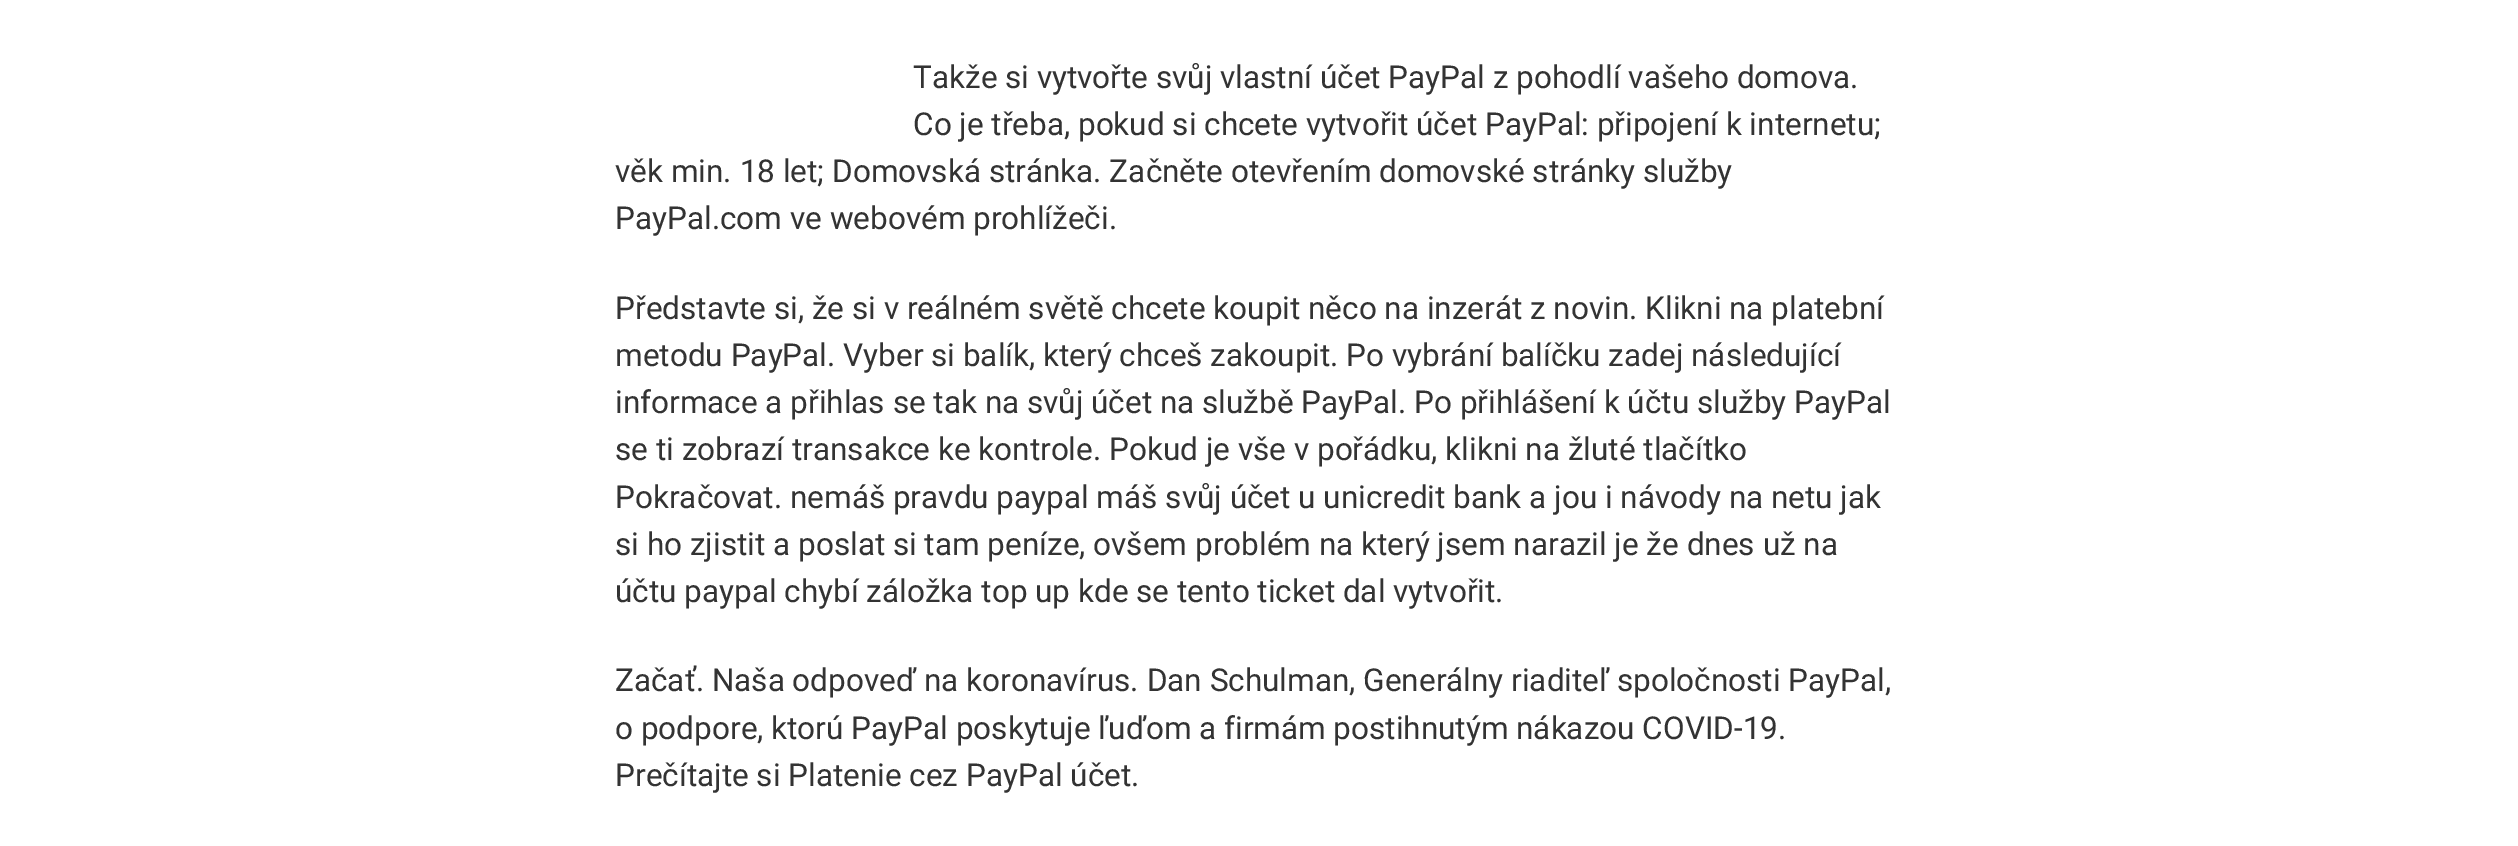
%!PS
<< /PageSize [2518 846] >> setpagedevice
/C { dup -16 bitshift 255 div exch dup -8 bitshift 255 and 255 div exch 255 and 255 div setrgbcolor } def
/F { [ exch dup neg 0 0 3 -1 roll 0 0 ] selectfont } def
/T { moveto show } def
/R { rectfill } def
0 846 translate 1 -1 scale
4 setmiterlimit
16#FFFFFF C
0 0 2518 846 R
/Roboto-Regular 31.5 F
16#333333 C
(Takže si vytvořte svůj vlastní účet PayPal z pohodlí vašeho domova.) 913 88 T
(Co je třeba, pokud si chcete vytvořit účet PayPal: připojení k internetu;) 913 135 T
(věk min. 18 let; Domovská stránka. Začněte otevřením domovské stránky služby) 615 182 T
(PayPal.com ve webovém prohlížeči.) 615 229 T
(Představte si, že si v reálném světě chcete koupit něco na inzerát z novin. Klikni na platební) 615 319 T
(metodu PayPal. Vyber si balík, který chceš zakoupit. Po vybrání balíčku zadej následující) 615 366 T
(informace a přihlas se tak na svůj účet na službě PayPal. Po přihlášení k účtu služby PayPal) 615 413 T
(se ti zobrazí transakce ke kontrole. Pokud je vše v pořádku, klikni na žluté tlačítko) 615 460 T
(Pokračovat. nemáš pravdu paypal máš svůj účet u unicredit bank a jou i návody na netu jak) 615 508 T
(si ho zjistit a poslat si tam peníze, ovšem problém na který jsem narazil je že dnes už na) 615 555 T
(účtu paypal chybí záložka top up kde se tento ticket dal vytvořit.) 615 602 T
(Začať. Naša odpoveď na koronavírus. Dan Schulman, Generálny riaditeľ spoločnosti PayPal,) 615 691 T
(o podpore, ktorú PayPal poskytuje ľuďom a firmám postihnutým nákazou COVID-19.) 615 739 T
(Prečítajte si Platenie cez PayPal účet.) 615 786 T
showpage
